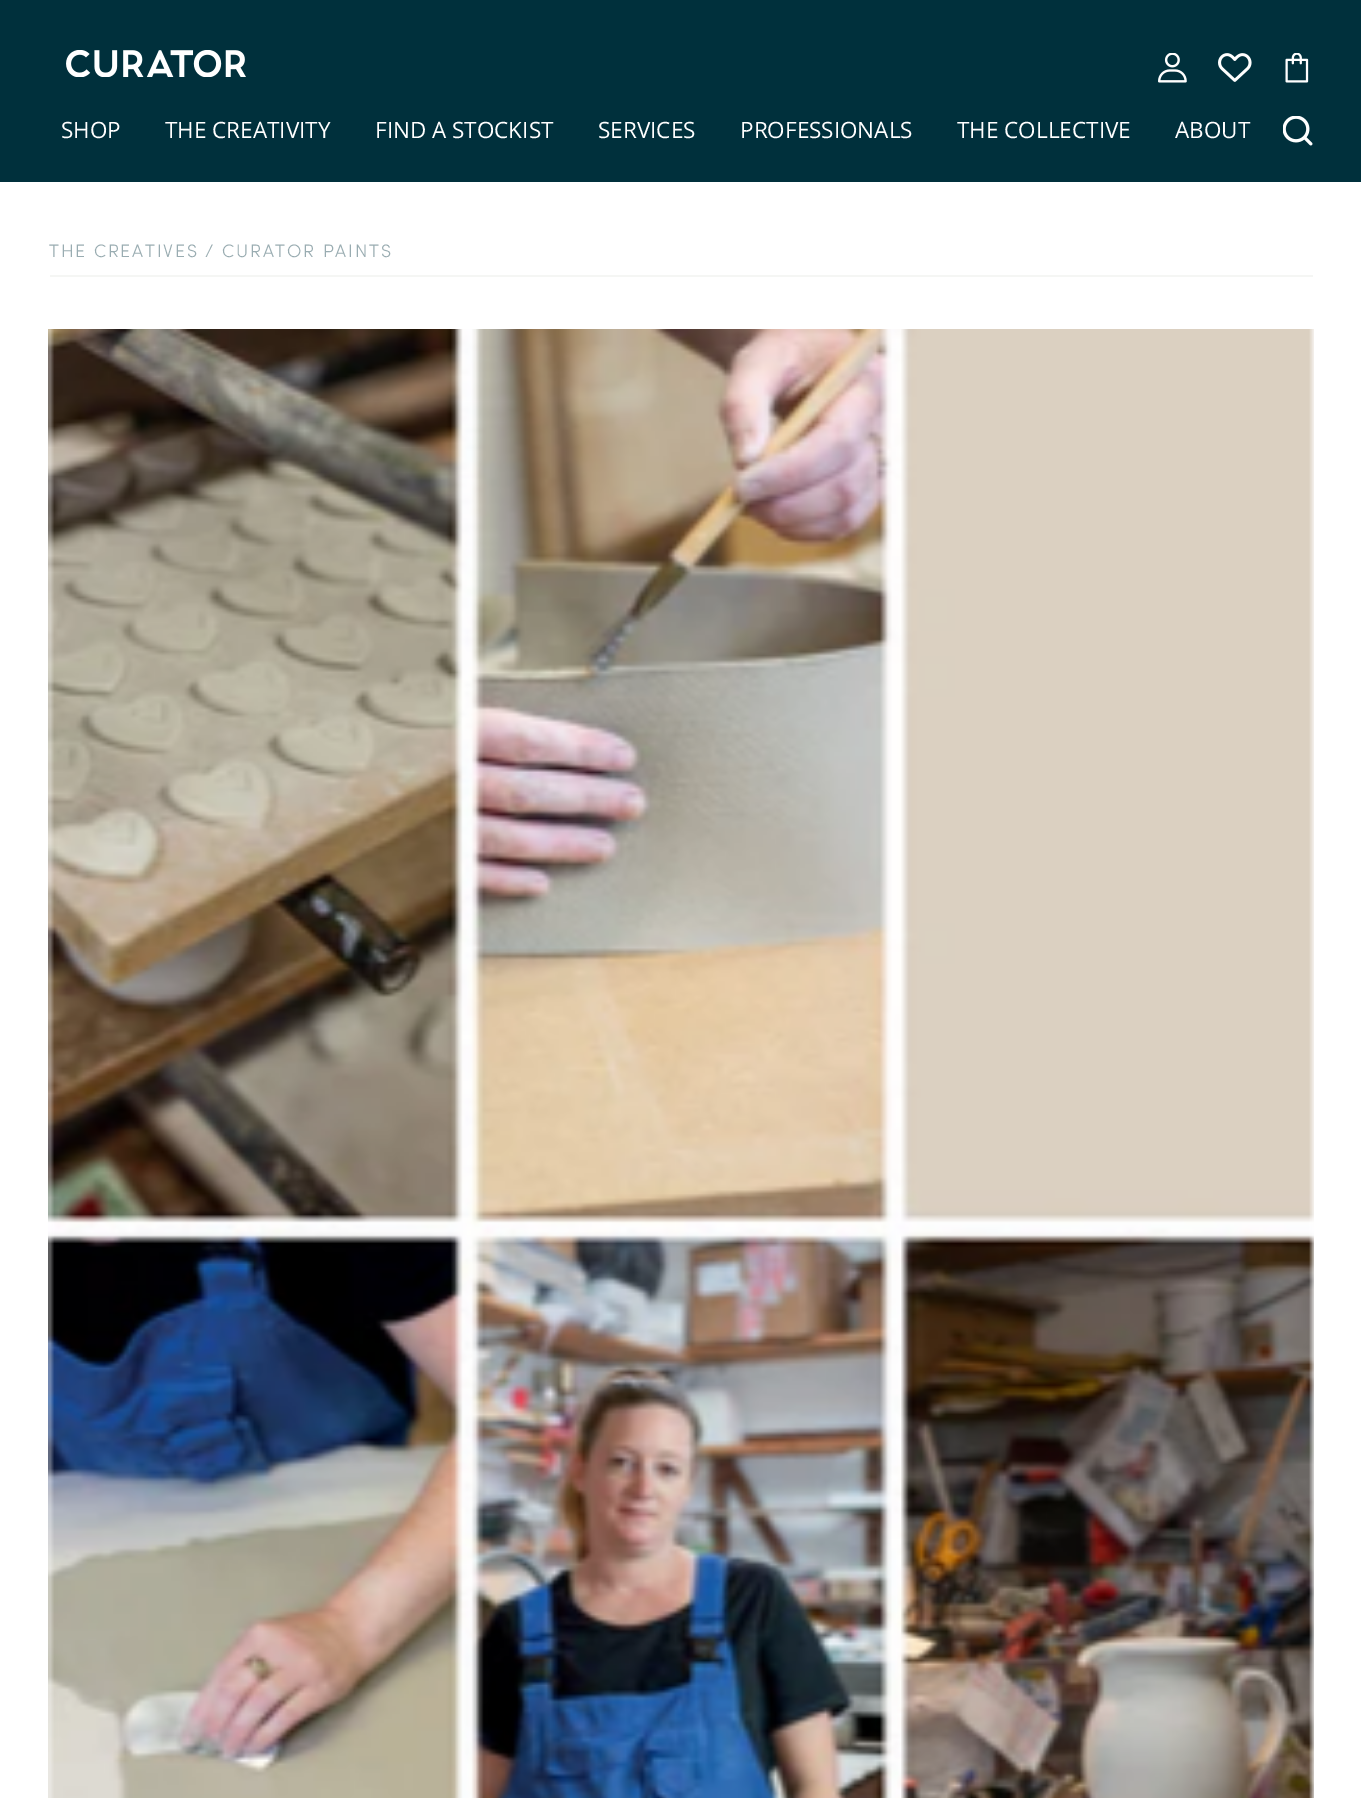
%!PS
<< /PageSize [1361 1798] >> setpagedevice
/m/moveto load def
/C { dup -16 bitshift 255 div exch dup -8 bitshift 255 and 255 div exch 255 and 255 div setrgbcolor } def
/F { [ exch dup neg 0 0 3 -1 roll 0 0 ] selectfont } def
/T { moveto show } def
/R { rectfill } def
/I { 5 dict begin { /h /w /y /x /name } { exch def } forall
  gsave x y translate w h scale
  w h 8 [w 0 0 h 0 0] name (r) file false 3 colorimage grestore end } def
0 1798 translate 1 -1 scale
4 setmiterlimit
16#FFFFFF C
0 0 1361 1798 R
16#00303C C
0 0 1361 182 R
(1.rgb) 66 50 180 27 I
(2.rgb) 1158 53 29 30 I
(3.rgb) 1218 53 34 29 I
(4.rgb) 1285 53 24 30 I
/OpenSans-Regular 22.5 F
16#FFFFFF C
(SHOP) 61 138 T
(THE CREATIVITY) 165 138 T
(FIND A STOCKIST) 375 138 T
(SERVICES) 598 138 T
(PROFESSIONALS) 740 138 T
(THE COLLECTIVE) 957 138 T
(ABOUT) 1175 138 T
(5.rgb) 1283 116 30 30 I
16#F5F6F4 C
50 275 1263 2 R
/Sofia-Light 18 F
16#99ACB1 C
49 257 m 1.8 0 (THE CREATIVES / CURATOR PAINTS) ashow
(6.rgb) 48 329 1266 1469 I
showpage
